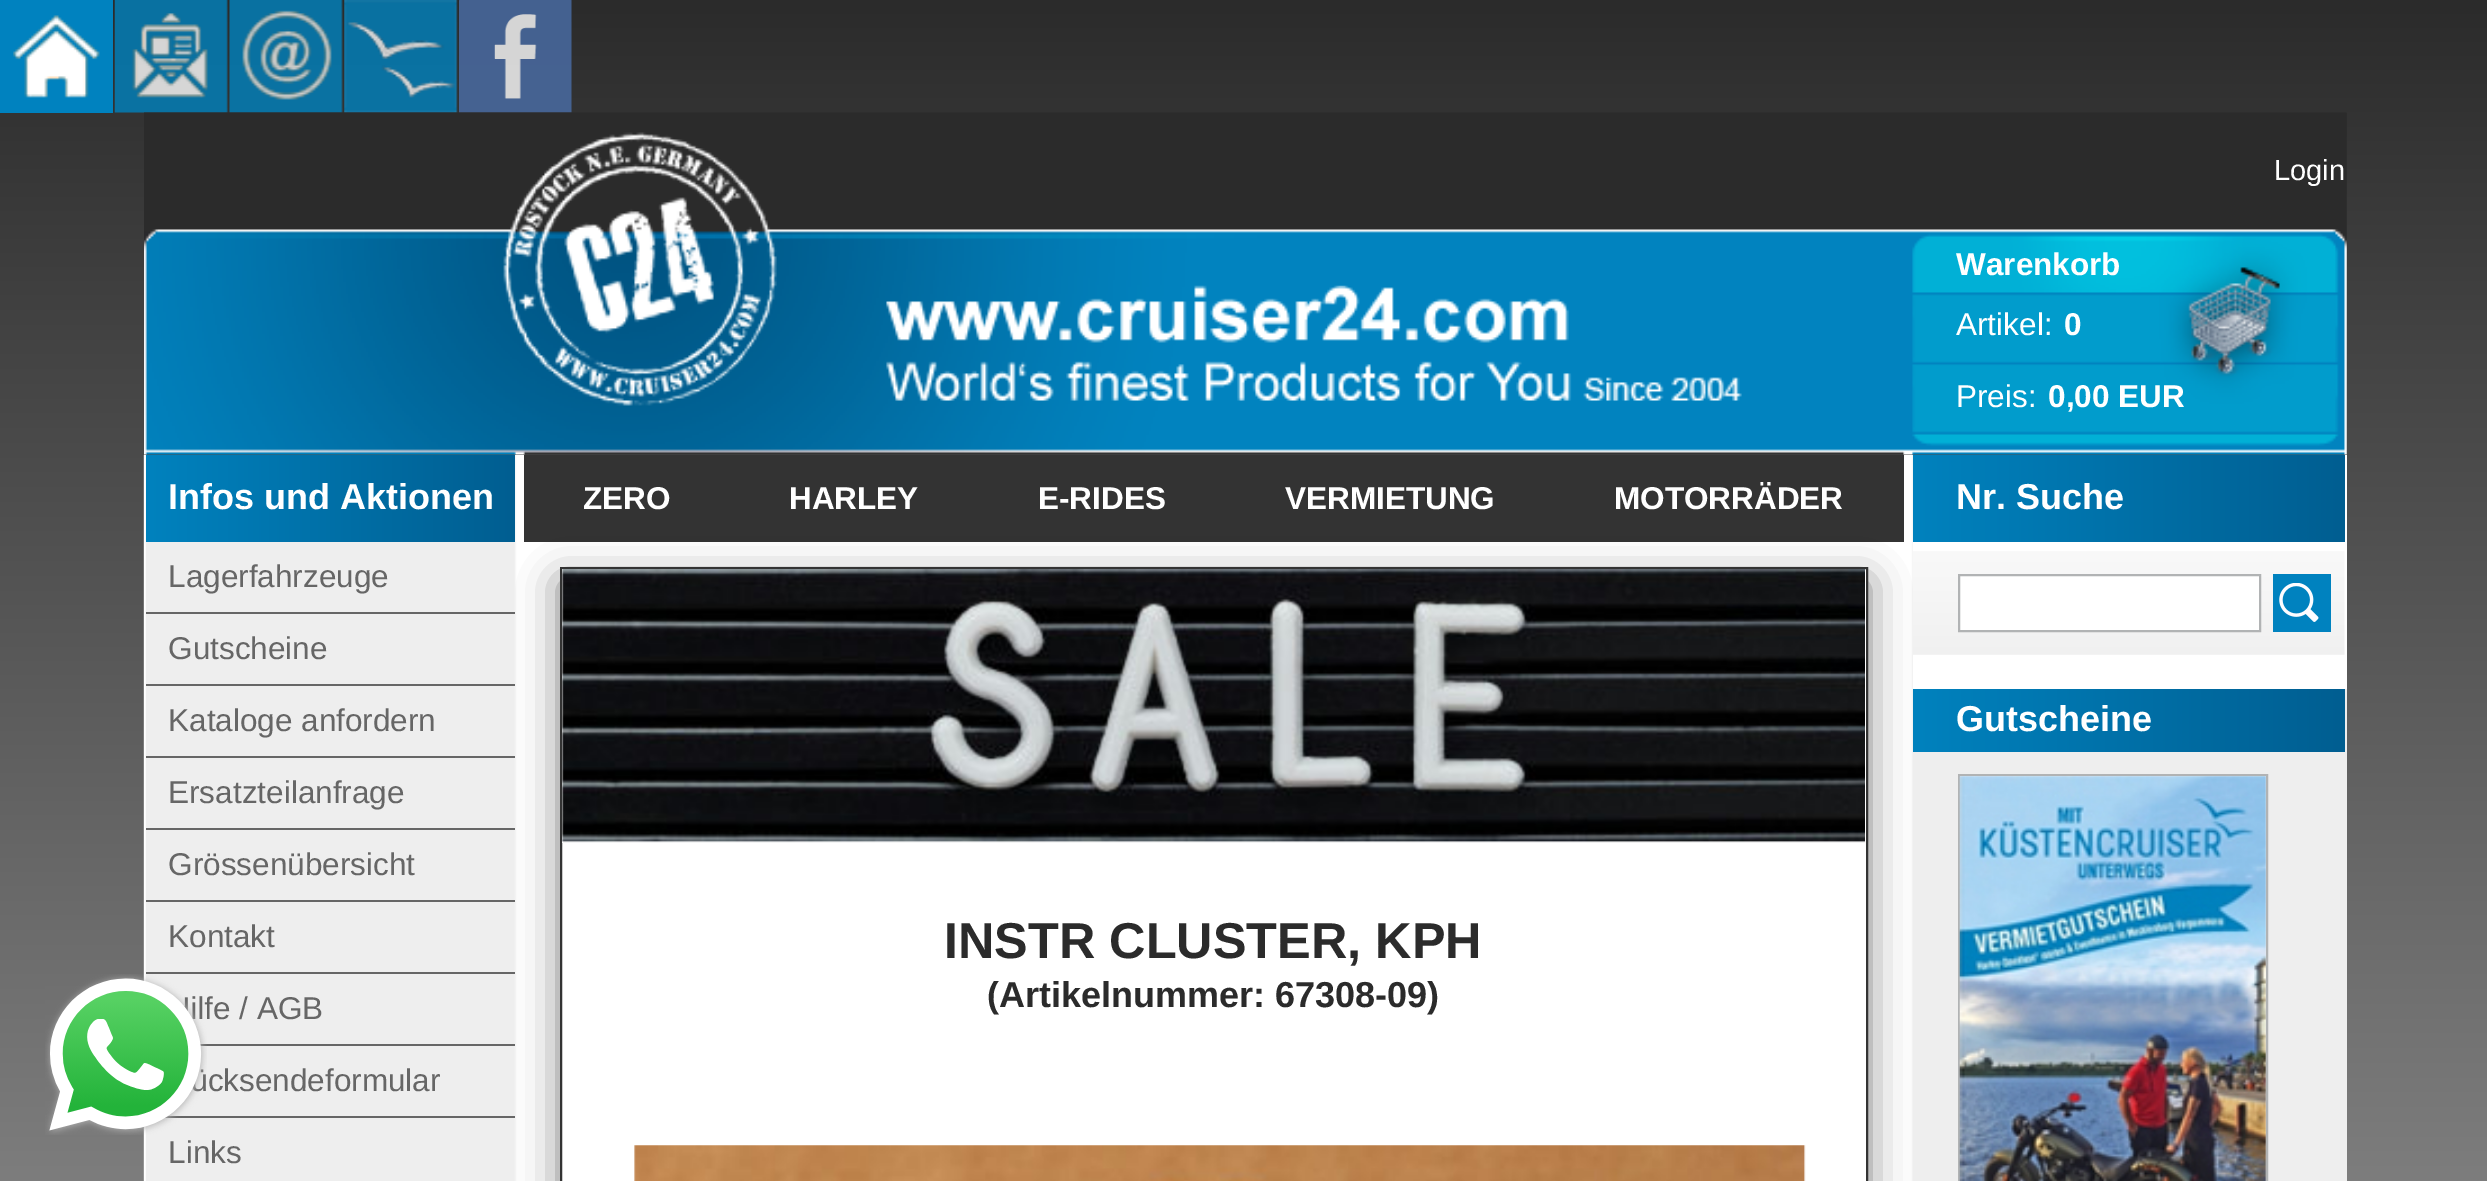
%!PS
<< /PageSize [2487 1181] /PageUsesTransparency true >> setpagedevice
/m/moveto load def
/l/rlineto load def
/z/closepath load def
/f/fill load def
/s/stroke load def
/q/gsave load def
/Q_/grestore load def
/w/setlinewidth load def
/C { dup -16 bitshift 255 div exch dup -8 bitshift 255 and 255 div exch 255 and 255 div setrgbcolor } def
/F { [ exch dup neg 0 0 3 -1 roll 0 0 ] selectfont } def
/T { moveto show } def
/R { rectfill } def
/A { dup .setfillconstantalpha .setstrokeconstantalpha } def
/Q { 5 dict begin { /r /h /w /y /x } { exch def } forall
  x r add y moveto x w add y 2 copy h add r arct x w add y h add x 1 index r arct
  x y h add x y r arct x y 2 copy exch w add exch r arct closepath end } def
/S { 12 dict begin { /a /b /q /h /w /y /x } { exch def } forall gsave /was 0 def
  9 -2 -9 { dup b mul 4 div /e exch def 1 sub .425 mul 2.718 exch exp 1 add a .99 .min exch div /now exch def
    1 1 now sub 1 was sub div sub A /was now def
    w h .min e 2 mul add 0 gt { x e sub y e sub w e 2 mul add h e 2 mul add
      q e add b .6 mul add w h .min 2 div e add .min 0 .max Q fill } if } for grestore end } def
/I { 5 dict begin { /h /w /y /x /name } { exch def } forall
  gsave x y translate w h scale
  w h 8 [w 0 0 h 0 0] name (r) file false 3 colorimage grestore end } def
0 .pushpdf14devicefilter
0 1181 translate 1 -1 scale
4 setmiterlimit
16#FFFFFF C
0 0 2487 1181 R
q 0 0 m 2487 0 l 0 1181 l -2487 0 l z clip newpath
<< /ShadingType 2 /ColorSpace /DeviceRGB /Coords [1244 0 1244 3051] /Extend [true true] /Function << /FunctionType 2 /Domain [0 1] /C0 [.169 .169 .169] /C1 [1 1 1] /N 1 >> >> shfill Q_
(1.rgb) 0 0 113 113 I
(2.rgb) 114 0 114 113 I
(3.rgb) 229 0 114 113 I
(4.rgb) 344 0 114 113 I
(5.rgb) 459 0 113 113 I
(9.rgb) 143 455 1770 726 I
16#EEEEEE C
146 974 1 70 R
16#666666 C
200 1044 315 2 R
/LiberationSans-Regular 31.5 F
(ilfe / AGB) 190 1019 T
165 1116 350 2 R
(ücksendeformular) 190 1091 T
16#EEEEEE C
146 1118 1 63 R
(6.rgb) 45 974 162 161 I
(7.rgb) 144 112 2203 343 I
/LiberationSans-Regular 29 F
16#FFFFFF C
(Login) 2274 180 T
(8.rgb) 886 285 856 116 I
/LiberationSans-Bold 31.5 F
(Warenkorb) 1956 275 T
/LiberationSans-Regular 31.5 F
(Artikel:) 1956 335 T
/LiberationSans-Bold 31.5 F
(0) 2064 335 T
/LiberationSans-Regular 31.5 F
(Preis:) 1956 407 T
/LiberationSans-Bold 31.5 F
(0,00 EUR) 2048 407 T
q 146 455 m 369 0 l 0 87 l -369 0 l z clip newpath
<< /ShadingType 2 /ColorSpace /DeviceRGB /Coords [146 858 515 858] /Extend [true true] /Function << /FunctionType 2 /Domain [0 1] /C0 [0 .51 .745] /C1 [.004 .369 .569] /N 1 >> >> shfill Q_
/LiberationSans-Bold 36 F
(Infos und Aktionen) 168 509 T
16#EEEEEE C
146 542 1 70 R
16#666666 C
146 612 369 2 R
/LiberationSans-Regular 31.5 F
(Lagerfahrzeuge) 168 587 T
16#EEEEEE C
146 614 1 70 R
16#666666 C
146 684 369 2 R
(Gutscheine) 168 659 T
16#EEEEEE C
146 686 1 70 R
16#666666 C
146 756 369 2 R
(Kataloge anfordern) 168 731 T
16#EEEEEE C
146 758 1 70 R
16#666666 C
146 828 369 2 R
(Ersatzteilanfrage) 168 803 T
16#EEEEEE C
146 830 1 70 R
16#666666 C
146 900 369 2 R
(Grössenübersicht) 168 875 T
16#EEEEEE C
146 902 1 70 R
16#666666 C
146 972 369 2 R
(Kontakt) 168 947 T
(Links) 168 1163 T
16#333333 C
524 455 1380 87 R
/LiberationSans-Bold 31.5 F
16#FFFFFF C
(ZERO) 583 509 T
(HARLEY) 789 509 T
(E-RIDES) 1038 509 T
(VERMIETUNG) 1285 509 T
(MOTORRÄDER) 1614 509 T
1913 455 434 234 R
q 1913 455 m 432 0 l 0 87 l -432 0 l z clip newpath
<< /ShadingType 2 /ColorSpace /DeviceRGB /Coords [1913 498 2345 498] /Extend [true true] /Function << /FunctionType 2 /Domain [0 1] /C0 [0 .51 .745] /C1 [.004 .369 .569] /N 1 >> >> shfill Q_
(12.rgb) 1913 551 432 104 I
16#EEEEEE C
1913 689 434 492 R
q 1913 689 m 432 0 l 0 63 l -432 0 l z clip newpath
<< /ShadingType 2 /ColorSpace /DeviceRGB /Coords [1913 720 2345 720] /Extend [true true] /Function << /FunctionType 2 /Domain [0 1] /C0 [0 .51 .745] /C1 [.004 .369 .569] /N 1 >> >> shfill Q_
16#000000 C
560 581 1308 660 0 20 .5 S
16#FFFFFF C
561 568 m 1306 0 l 0 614 l -1306 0 l z q f Q_
16#333333 C
2 w
s
(10.rgb) 562 569 1303 274 I
/LiberationSans-Bold 50.4 F
16#2B2B2B C
(INSTR CLUSTER, KPH) 944 958 T
/LiberationSans-Bold 36 F
(\(Artikelnummer: 67308-09\)) 987 1007 T
(11.rgb) 634 1145 1172 36 I
16#FFFFFF C
(Nr. Suche) 1956 509 T
1959 575 m 301 0 l 0 56 l -301 0 l z q f Q_
16#B1B3B4 C
s
16#0082BF C
2273 574 58 58 R
(13.rgb) 2279 583 40 39 I
16#FFFFFF C
(Gutscheine) 1956 731 T
16#B1B3B4 C
1959 775 308 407 rectstroke
(14.rgb) 1959 776 307 405 I
.poppdf14devicefilter showpage
